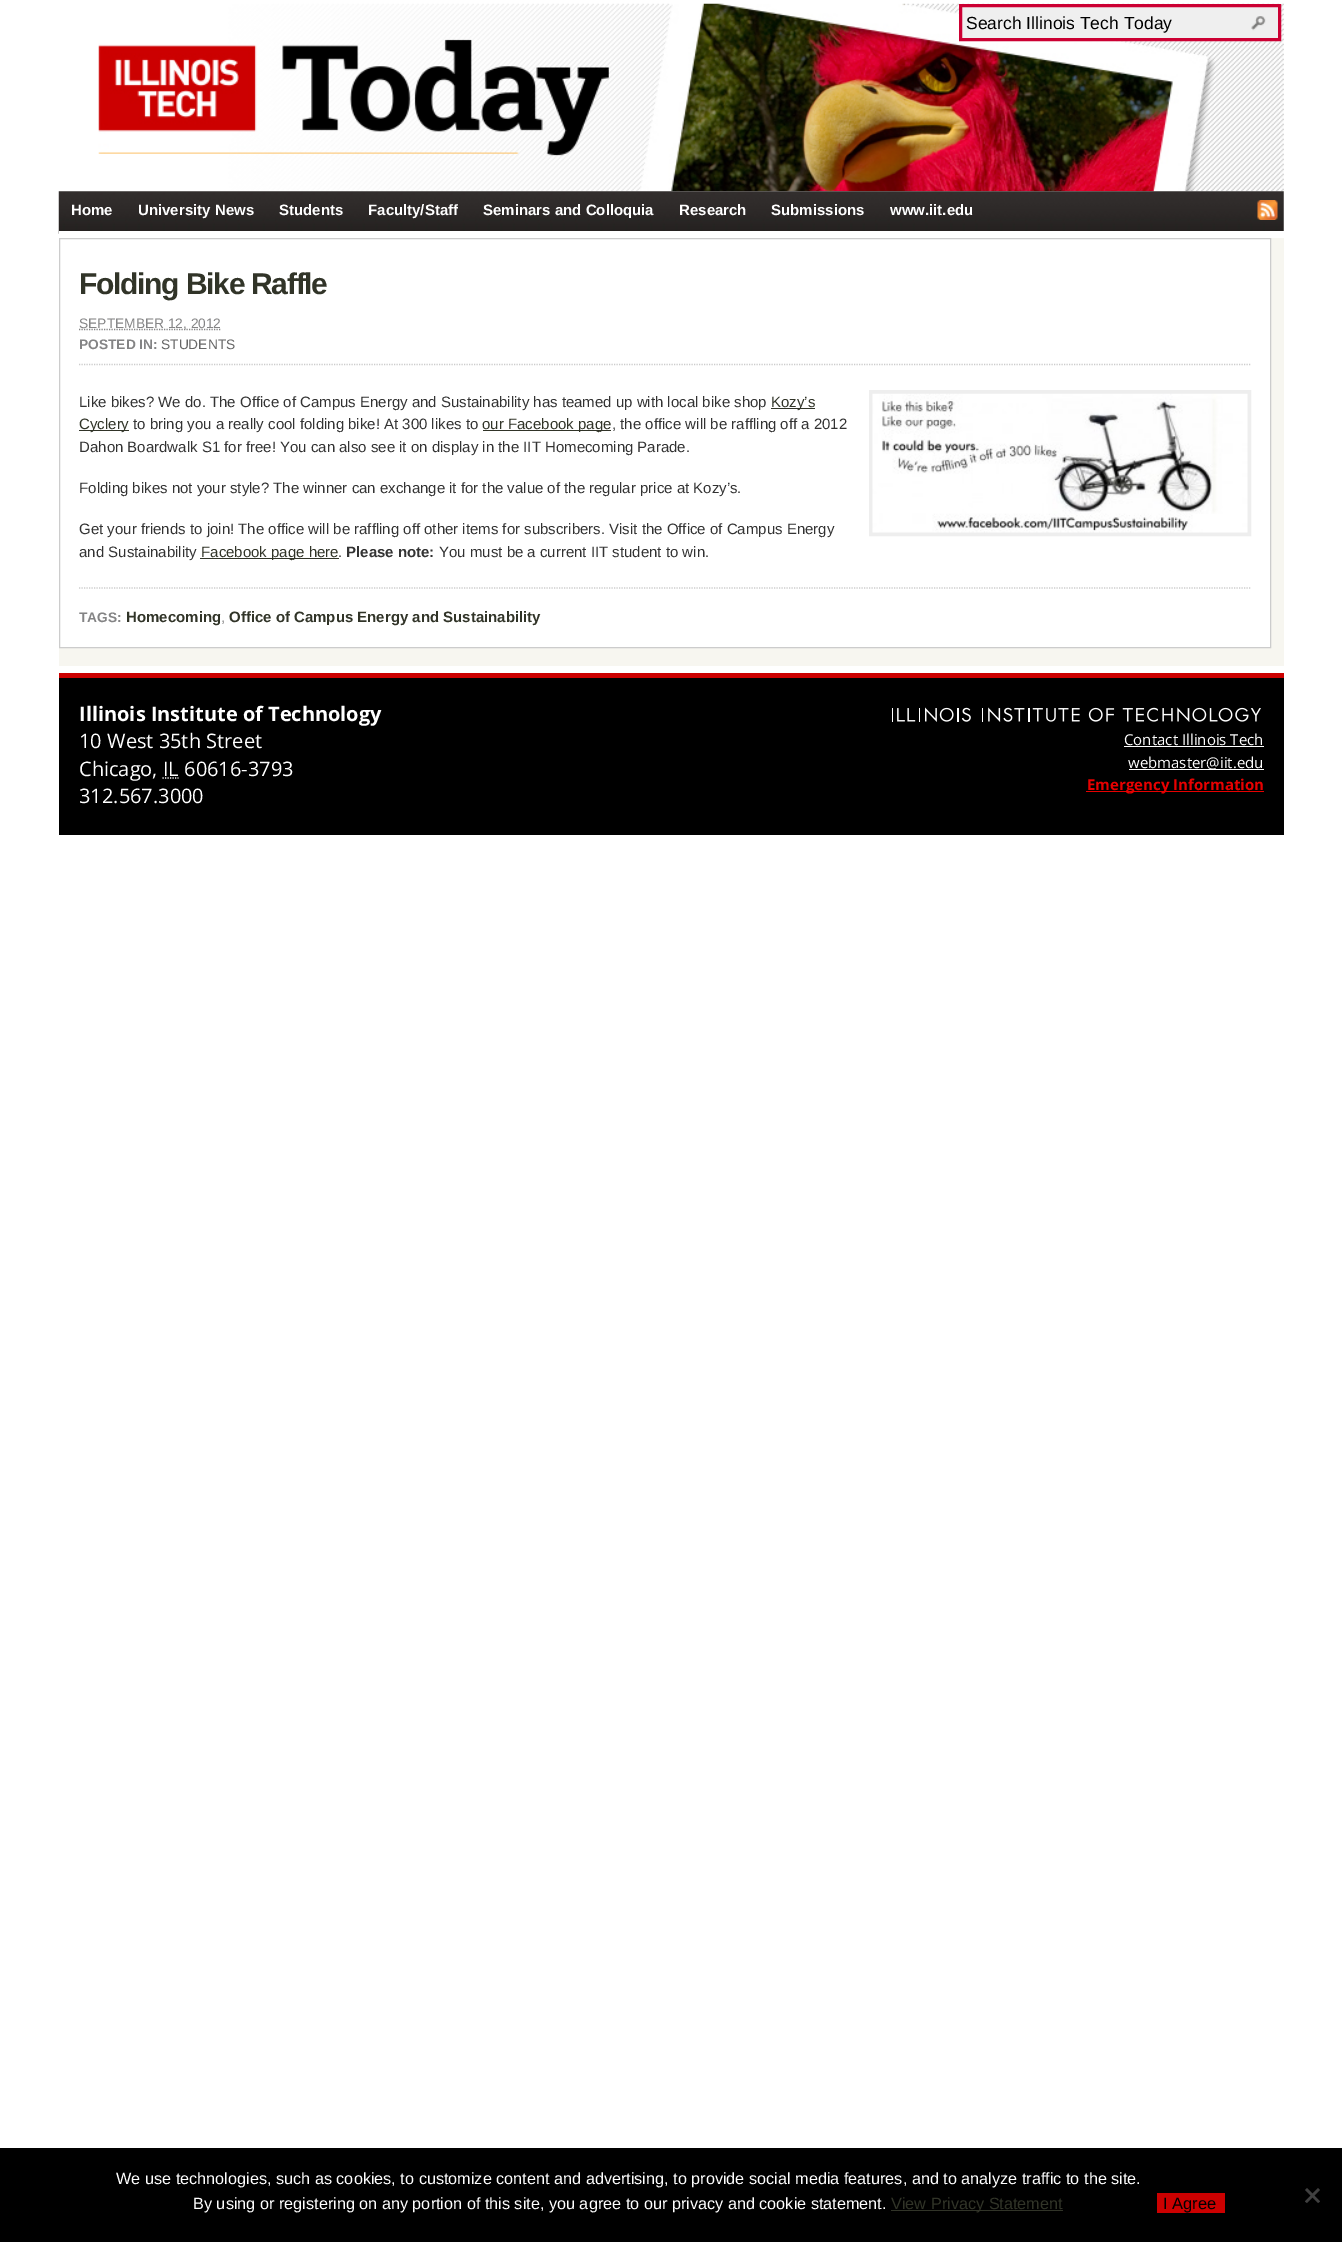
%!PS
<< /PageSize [1342 2242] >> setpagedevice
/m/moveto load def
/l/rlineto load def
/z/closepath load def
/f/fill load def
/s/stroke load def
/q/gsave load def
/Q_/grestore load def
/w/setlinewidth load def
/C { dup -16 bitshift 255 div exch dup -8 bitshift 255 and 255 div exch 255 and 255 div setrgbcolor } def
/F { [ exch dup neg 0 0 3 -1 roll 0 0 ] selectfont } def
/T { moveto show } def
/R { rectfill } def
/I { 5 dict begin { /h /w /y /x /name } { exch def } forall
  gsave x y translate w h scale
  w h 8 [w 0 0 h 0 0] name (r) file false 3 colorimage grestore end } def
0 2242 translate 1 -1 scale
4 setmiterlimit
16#FFFFFF C
0 0 1342 2242 R
(1.rgb) 98 3 1186 189 I
16#EFEFEF C
960.5 5.5 m 319 0 l 0 34 l -319 0 l z q f Q_
16#CC0033 C
3 w
s
/LiberationSans-Regular 17.5 F
16#000000 C
(Search Illinois Tech Today) 966 29 T
(2.rgb) 1251 16 15 15 I
(3.rgb) 58 191 1226 43 I
/LiberationSans-Bold 15 F
16#FFFFFF C
(Home) 71 215 T
(University News) 138 215 T
(Students) 279 215 T
(Faculty/Staff) 368 215 T
(Seminars and Colloquia) 483 215 T
(Research) 679 215 T
(Submissions) 771 215 T
(www.iit.edu) 890 215 T
(4.rgb) 1257 200 21 20 I
59 231 1225 3 R
16#F7F6F0 C
59 238 1225 428 R
16#FFFFFF C
59.5 238.5 m 1211 0 l 0 409 l -1211 0 l z q f Q_
16#CCCCCC C
1 w
s
/LiberationSans-Bold 30 F
16#313428 C
79 294 m -1.25 0 (Folding Bike Raffle) ashow
16#CCCCCC C
1.2 w
[1.25 1.25] 0 setdash
79 364.5 m 1172 0 l s
16#848485 C
79 329.5 m 142 0 l s
/LiberationSans-Regular 13.75 F
(SEPTEMBER 12, 2012) 79 328 T
/LiberationSans-Bold 13.75 F
(POSTED IN:) 79 349 T
/LiberationSans-Regular 13.75 F
16#666666 C
(STUDENTS) 161 349 T
/LiberationSans-Regular 15 F
16#333333 C
(Like bikes? We do. The Office of Campus Energy and Sustainability has teamed up with local bike shop) 79 407 T
16#313428 C
771 408 44 1 R
(Kozy’s) 771 407 T
16#EEEEEE C
4 w
[] 0 setdash
871 392 378 142 rectstroke
(5.rgb) 872 393 376 140 I
16#313428 C
79 430 50 1 R
(Cyclery) 79 429 T
16#333333 C
(to bring you a really cool folding bike! At 300 likes to) 133 429 T
16#313428 C
483 430 128 1 R
(our Facebook page) 482 429 T
16#333333 C
(, the office will be raffling off a 2012) 612 429 T
(Dahon Boardwalk S1 for free! You can also see it on display in the IIT Homecoming Parade.) 79 452 T
(Folding bikes not your style? The winner can exchange it for the value of the regular price at Kozy’s.) 79 493 T
(Get your friends to join! The office will be raffling off other items for subscribers. Visit the Office of Campus Energy) 79 534 T
(and Sustainability) 79 557 T
16#313428 C
200 558 139 1 R
(Facebook page here) 201 557 T
16#333333 C
(.) 338 557 T
/LiberationSans-Bold 15 F
(Please note:) 346 557 T
/LiberationSans-Regular 15 F
(You must be a current IIT student to win.) 439 557 T
16#CCCCCC C
1.2 w
[1.25 1.25] 0 setdash
79 588 m 1172 0 l s
/LiberationSans-Bold 13.75 F
16#848485 C
(TAGS:) 79 622 T
/LiberationSans-Bold 15 F
16#313428 C
(Homecoming) 126 622 T
/LiberationSans-Regular 15 F
16#848485 C
(,) 221 622 T
/LiberationSans-Bold 15 F
16#313428 C
(Office of Campus Energy and Sustainability) 229 622 T
16#000000 C
59 678 1225 157 R
16#CC0000 C
59 673 1225 5 R
/OpenSans-Bold 20 F
16#FFFFFF C
(Illinois Institute of Technology) 79 721 T
/OpenSans-Regular 20 F
(10 West 35th Street) 79 748 T
(Chicago, IL 60616-3793) 79 776 T
162.5 778 m 16 0 l s
(312.567.3000) 79 803 T
(6.rgb) 892 707 369 15 I
/OpenSans-Regular 15 F
(Contact Illinois Tech) 1124 745 T
1124 746 140 1 R
1129 769 135 1 R
(webmaster@iit.edu) 1128 768 T
16#E80000 C
1086 791 178 1 R
/OpenSans-Bold 15 F
(Emergency Information) 1087 790 T
16#000000 C
0 2148 1342 94 R
/LiberationSans-Regular 16.25 F
16#FFFFFF C
(We use technologies, such as cookies, to customize content and advertising, to provide social media features, and to analyze traffic to the site.) 116 2184 T
(By using or registering on any portion of this site, you agree to our privacy and cookie statement.) 193 2209 T
16#313428 C
891 2210 172 1 R
(View Privacy Statement) 891 2209 T
16#404040 C
1318 2188 m 2 2 l -13 13 l -2 -1.5 l z f
1305 2190 m 2 -2 l 13 13.5 l -2 1.5 l z f
16#CC0000 C
1157 2193 68 20 R
/LiberationSans-Regular 16.5 F
16#000000 C
(I Agree) 1163 2209 T
showpage
